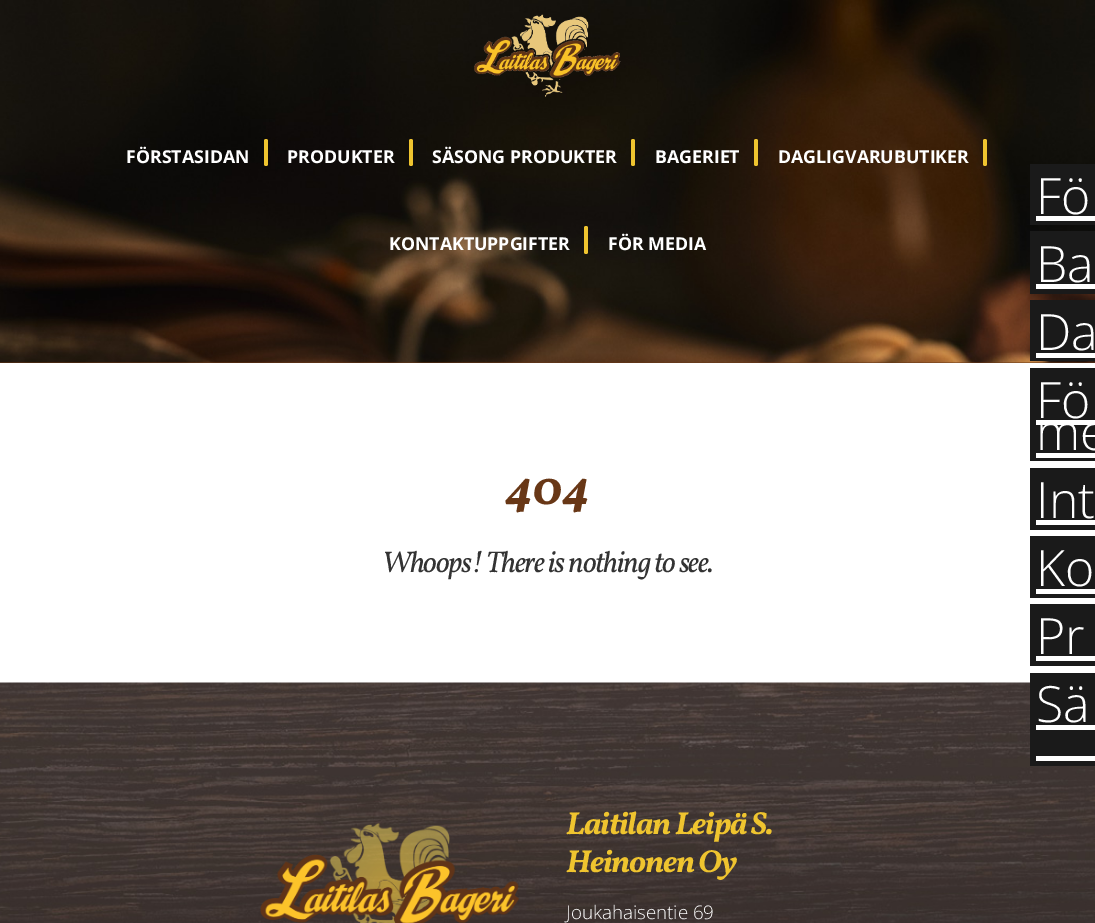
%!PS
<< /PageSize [1095 923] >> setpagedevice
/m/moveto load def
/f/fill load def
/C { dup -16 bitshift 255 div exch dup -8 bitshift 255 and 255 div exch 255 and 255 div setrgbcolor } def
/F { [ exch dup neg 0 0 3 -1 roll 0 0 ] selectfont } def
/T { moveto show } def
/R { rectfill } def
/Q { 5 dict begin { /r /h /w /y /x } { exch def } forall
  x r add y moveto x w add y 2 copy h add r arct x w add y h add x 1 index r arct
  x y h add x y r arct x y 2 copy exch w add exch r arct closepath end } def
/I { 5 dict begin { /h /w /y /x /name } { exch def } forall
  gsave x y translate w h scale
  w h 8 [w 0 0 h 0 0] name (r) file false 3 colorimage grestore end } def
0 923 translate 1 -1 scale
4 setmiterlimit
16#FFFFFF C
0 0 1095 923 R
16#683716 C
0 362 1095 1 R
(1.rgb) 0 0 1095 363 I
(2.rgb) 474 14 147 83 I
/OpenSans-Bold 17.75 F
16#FFFFFF C
(FÖRSTASIDAN) 126 163 T
16#EFC42F C
264 139 4 27 2 Q f
16#FFFFFF C
(PRODUKTER) 287 163 T
16#EFC42F C
409 139 4 27 2 Q f
16#FFFFFF C
(SÄSONG PRODUKTER) 432 163 T
16#EFC42F C
631 139 4 27 2 Q f
16#FFFFFF C
(BAGERIET) 655 163 T
16#EFC42F C
754 139 4 27 2 Q f
16#FFFFFF C
(DAGLIGVARUBUTIKER) 778 163 T
16#EFC42F C
983 139 4 27 2 Q f
16#FFFFFF C
(KONTAKTUPPGIFTER) 389 250 T
16#EFC42F C
584 226 4 28 2 Q f
16#FFFFFF C
(FÖR MEDIA) 608 250 T
/Vollkorn-BoldItalic 50 F
16#683716 C
505 504 m -1.25 0 (404) ashow
/Vollkorn-Italic 30 F
16#333333 C
382 572 m -1.25 0 (Whoops! There is nothing to see.) ashow
(3.rgb) 0 682 1095 241 I
16#1A1A1A C
1030 164 65 61 R
/OpenSans-Light 50 F
16#FFFFFF C
(Fö) 1036 214 T
1036 216 59 5 R
16#1A1A1A C
1030 231 65 63 R
16#FFFFFF C
(Ba) 1036 282 T
1036 284 59 5 R
16#1A1A1A C
1030 300 65 61 R
16#FFFFFF C
(Da) 1036 350 T
1036 353 59 5 R
16#1A1A1A C
1030 368 65 93 R
16#FFFFFF C
(Fö) 1036 418 T
1036 420 59 5 R
(me) 1036 450 T
1036 453 59 5 R
16#1A1A1A C
1030 468 65 62 R
16#FFFFFF C
(Int) 1036 518 T
1036 520 59 5 R
16#1A1A1A C
1030 536 65 62 R
16#FFFFFF C
(Ko) 1036 586 T
1036 589 59 5 R
16#1A1A1A C
1030 604 65 62 R
16#FFFFFF C
(Pr) 1036 654 T
1036 656 59 5 R
16#1A1A1A C
1030 673 65 93 R
16#FFFFFF C
(Sä) 1036 722 T
1036 725 59 5 R
1036 756 59 5 R
(4.rgb) 260 823 259 100 I
/Vollkorn-BoldItalic 32 F
16#EFC42F C
566 834 m -1.25 0 (Laitilan Leipä S.) ashow
566 872 m -1.25 0 (Heinonen Oy) ashow
/OpenSans-Light 18.75 F
16#FFFFFF C
(Joukahaisentie 69) 566 919 T
showpage
